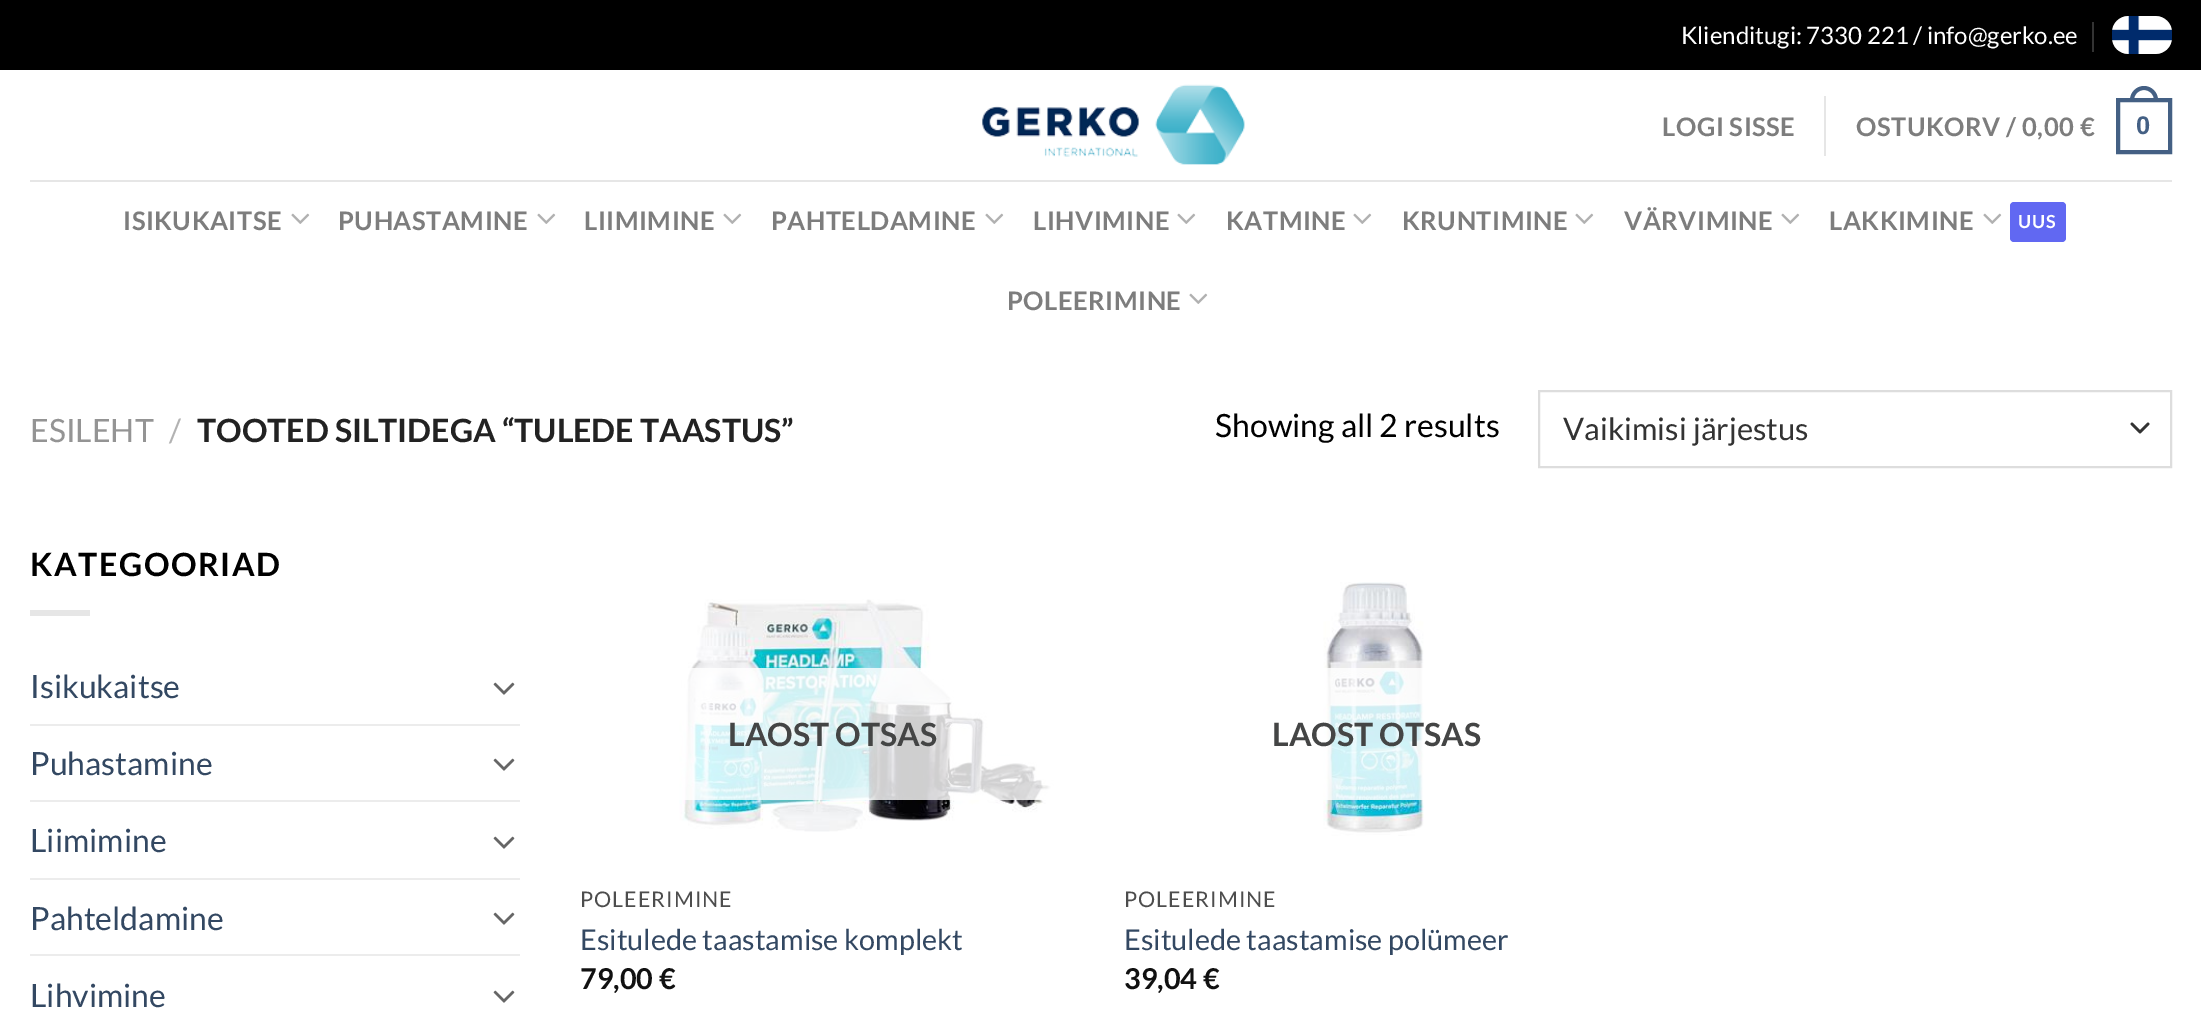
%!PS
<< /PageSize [2201 1032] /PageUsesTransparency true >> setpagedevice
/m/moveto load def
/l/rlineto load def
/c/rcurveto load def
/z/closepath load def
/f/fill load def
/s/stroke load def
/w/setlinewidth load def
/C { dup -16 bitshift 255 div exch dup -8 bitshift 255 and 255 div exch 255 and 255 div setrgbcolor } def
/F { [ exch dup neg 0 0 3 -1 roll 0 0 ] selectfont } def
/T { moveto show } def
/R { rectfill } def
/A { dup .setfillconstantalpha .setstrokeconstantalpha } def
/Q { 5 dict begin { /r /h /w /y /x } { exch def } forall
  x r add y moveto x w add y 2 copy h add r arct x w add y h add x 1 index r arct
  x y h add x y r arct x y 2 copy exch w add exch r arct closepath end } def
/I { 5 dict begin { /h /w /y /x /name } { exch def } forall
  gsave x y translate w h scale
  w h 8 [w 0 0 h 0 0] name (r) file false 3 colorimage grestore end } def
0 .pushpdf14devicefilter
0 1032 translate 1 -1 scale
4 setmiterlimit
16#FFFFFF C
0 0 2201 1032 R
16#000000 C
0 0 2201 70 R
/Lato-Regular 24 F
16#FFFFFF C
(Klienditugi: 7330 221 / info@gerko.ee) 1681 44 T
16#333333 C
2092 22 2 30 R
(1.rgb) 2112 16 60 38 I
(2.rgb) 982 84 263 81 I
/Lato-Bold 25.5 F
16#7D7D7D C
1662 136 m .5 0 (LOGI SISSE) ashow
16#E6E6E6 C
1824 96 2 60 R
16#7D7D7D C
1856 136 m .5 0 (OSTUKORV / 0,00 €) ashow
16#446084 C
4 w
2118 100 52 52 rectstroke
2144 86 m 7.5 0 14 6.5 14 14 c 0 2 l -28 0 l 0 -2 l 0 -7.5 6.5 -14 14 -14 c z 2144 90 m 5.5 0 10 4.5 10 10 c 0 2 l -20 0 l 0 -2 l 0 -5.5 4.5 -10 10 -10 c z eofill
/LiberationSans-Bold 25.5 F
2136 134 m .5 0 (0) ashow
16#E6E6E6 C
30 180 2142 2 R
/Lato-Bold 25.5 F
16#7D7D7D C
123 230 m .5 0 (ISIKUKAITSE) ashow
(3.rgb) 291 213 19 11 I
338 230 m .5 0 (PUHASTAMINE) ashow
(3.rgb) 537 213 19 11 I
584 230 m .5 0 (LIIMIMINE) ashow
(3.rgb) 723 213 19 11 I
771 230 m .5 0 (PAHTELDAMINE) ashow
(3.rgb) 985 213 19 11 I
1033 230 m .5 0 (LIHVIMINE) ashow
(3.rgb) 1177 213 19 11 I
1226 230 m .5 0 (KATMINE) ashow
(3.rgb) 1353 213 19 11 I
1402 230 m .5 0 (KRUNTIMINE) ashow
(3.rgb) 1575 213 19 11 I
1624 230 m .5 0 (VÄRVIMINE) ashow
(3.rgb) 1781 213 19 11 I
1829 230 m .5 0 (LAKKIMINE) ashow
(3.rgb) 1983 213 19 11 I
16#6168F2 C
2010 202 56 40 4 Q f
/Lato-Bold 18 F
16#FFFFFF C
2018 228 m 1 0 (UUS) ashow
/Lato-Bold 25.5 F
16#7D7D7D C
1007 310 m .5 0 (POLEERIMINE) ashow
(3.rgb) 1189 293 19 11 I
/Lato-Regular 32 F
16#949494 C
(ESILEHT) 30 442 T
16#B2B2B2 C
(/) 169 442 T
/Lato-Bold 32 F
16#222222 C
(TOOTED SILTIDEGA “TULEDE TAASTUS”) 197 442 T
/Lato-Regular 32 F
16#000000 C
(Showing all 2 results) 1215 437 T
16#333333 C
2.7 w
1 setlinecap
1 setlinejoin
2132 424 m 8 8 l 8 -8 l s
16#DDDDDD C
2 w
0 setlinecap
0 setlinejoin
1539 391 632 76 rectstroke
/Lato-Regular 31 F
16#333333 C
(Vaikimisi järjestus) 1563 440 T
/Lato-Bold 32 F
16#000000 C
30 576 m 1.6 0 (KATEGOORIAD) ashow
16#E6E6E6 C
30 610 60 6 R
/Lato-Regular 32 F
16#334862 C
(Isikukaitse) 30 698 T
(4.rgb) 493 682 22 13 I
16#ECECEC C
30 724 490 2 R
16#334862 C
(Puhastamine) 30 775 T
(4.rgb) 493 758 22 13 I
16#ECECEC C
30 800 490 2 R
16#334862 C
(Liimimine) 30 852 T
(4.rgb) 493 836 22 13 I
16#ECECEC C
30 878 490 2 R
16#334862 C
(Pahteldamine) 30 930 T
(4.rgb) 493 912 22 13 I
16#ECECEC C
30 954 490 2 R
16#334862 C
(Lihvimine) 30 1007 T
(4.rgb) 493 990 22 13 I
(5.rgb) 679 599 375 233 I
0.81 A
16#FFFFFF C
679 668 375 132 R
/Lato-Bold 32 F
1 A
16#444545 C
(LAOST OTSAS) 728 746 T
/Lato-Regular 21.5 F
16#4D4D4D C
580 907 m 1 0 (POLEERIMINE) ashow
/Lato-Regular 28.75 F
16#334862 C
(Esitulede taastamise komplekt) 580 950 T
/Lato-Bold 28.75 F
16#111111 C
(79,00 €) 580 989 T
(6.rgb) 1323 582 101 254 I
0.81 A
16#FFFFFF C
1323 668 101 132 R
/Lato-Bold 32 F
1 A
16#444545 C
(LAOST OTSAS) 1272 746 T
/Lato-Regular 21.5 F
16#4D4D4D C
1124 907 m 1 0 (POLEERIMINE) ashow
/Lato-Regular 28.75 F
16#334862 C
(Esitulede taastamise polümeer) 1124 950 T
/Lato-Bold 28.75 F
16#111111 C
(39,04 €) 1124 989 T
.poppdf14devicefilter showpage
